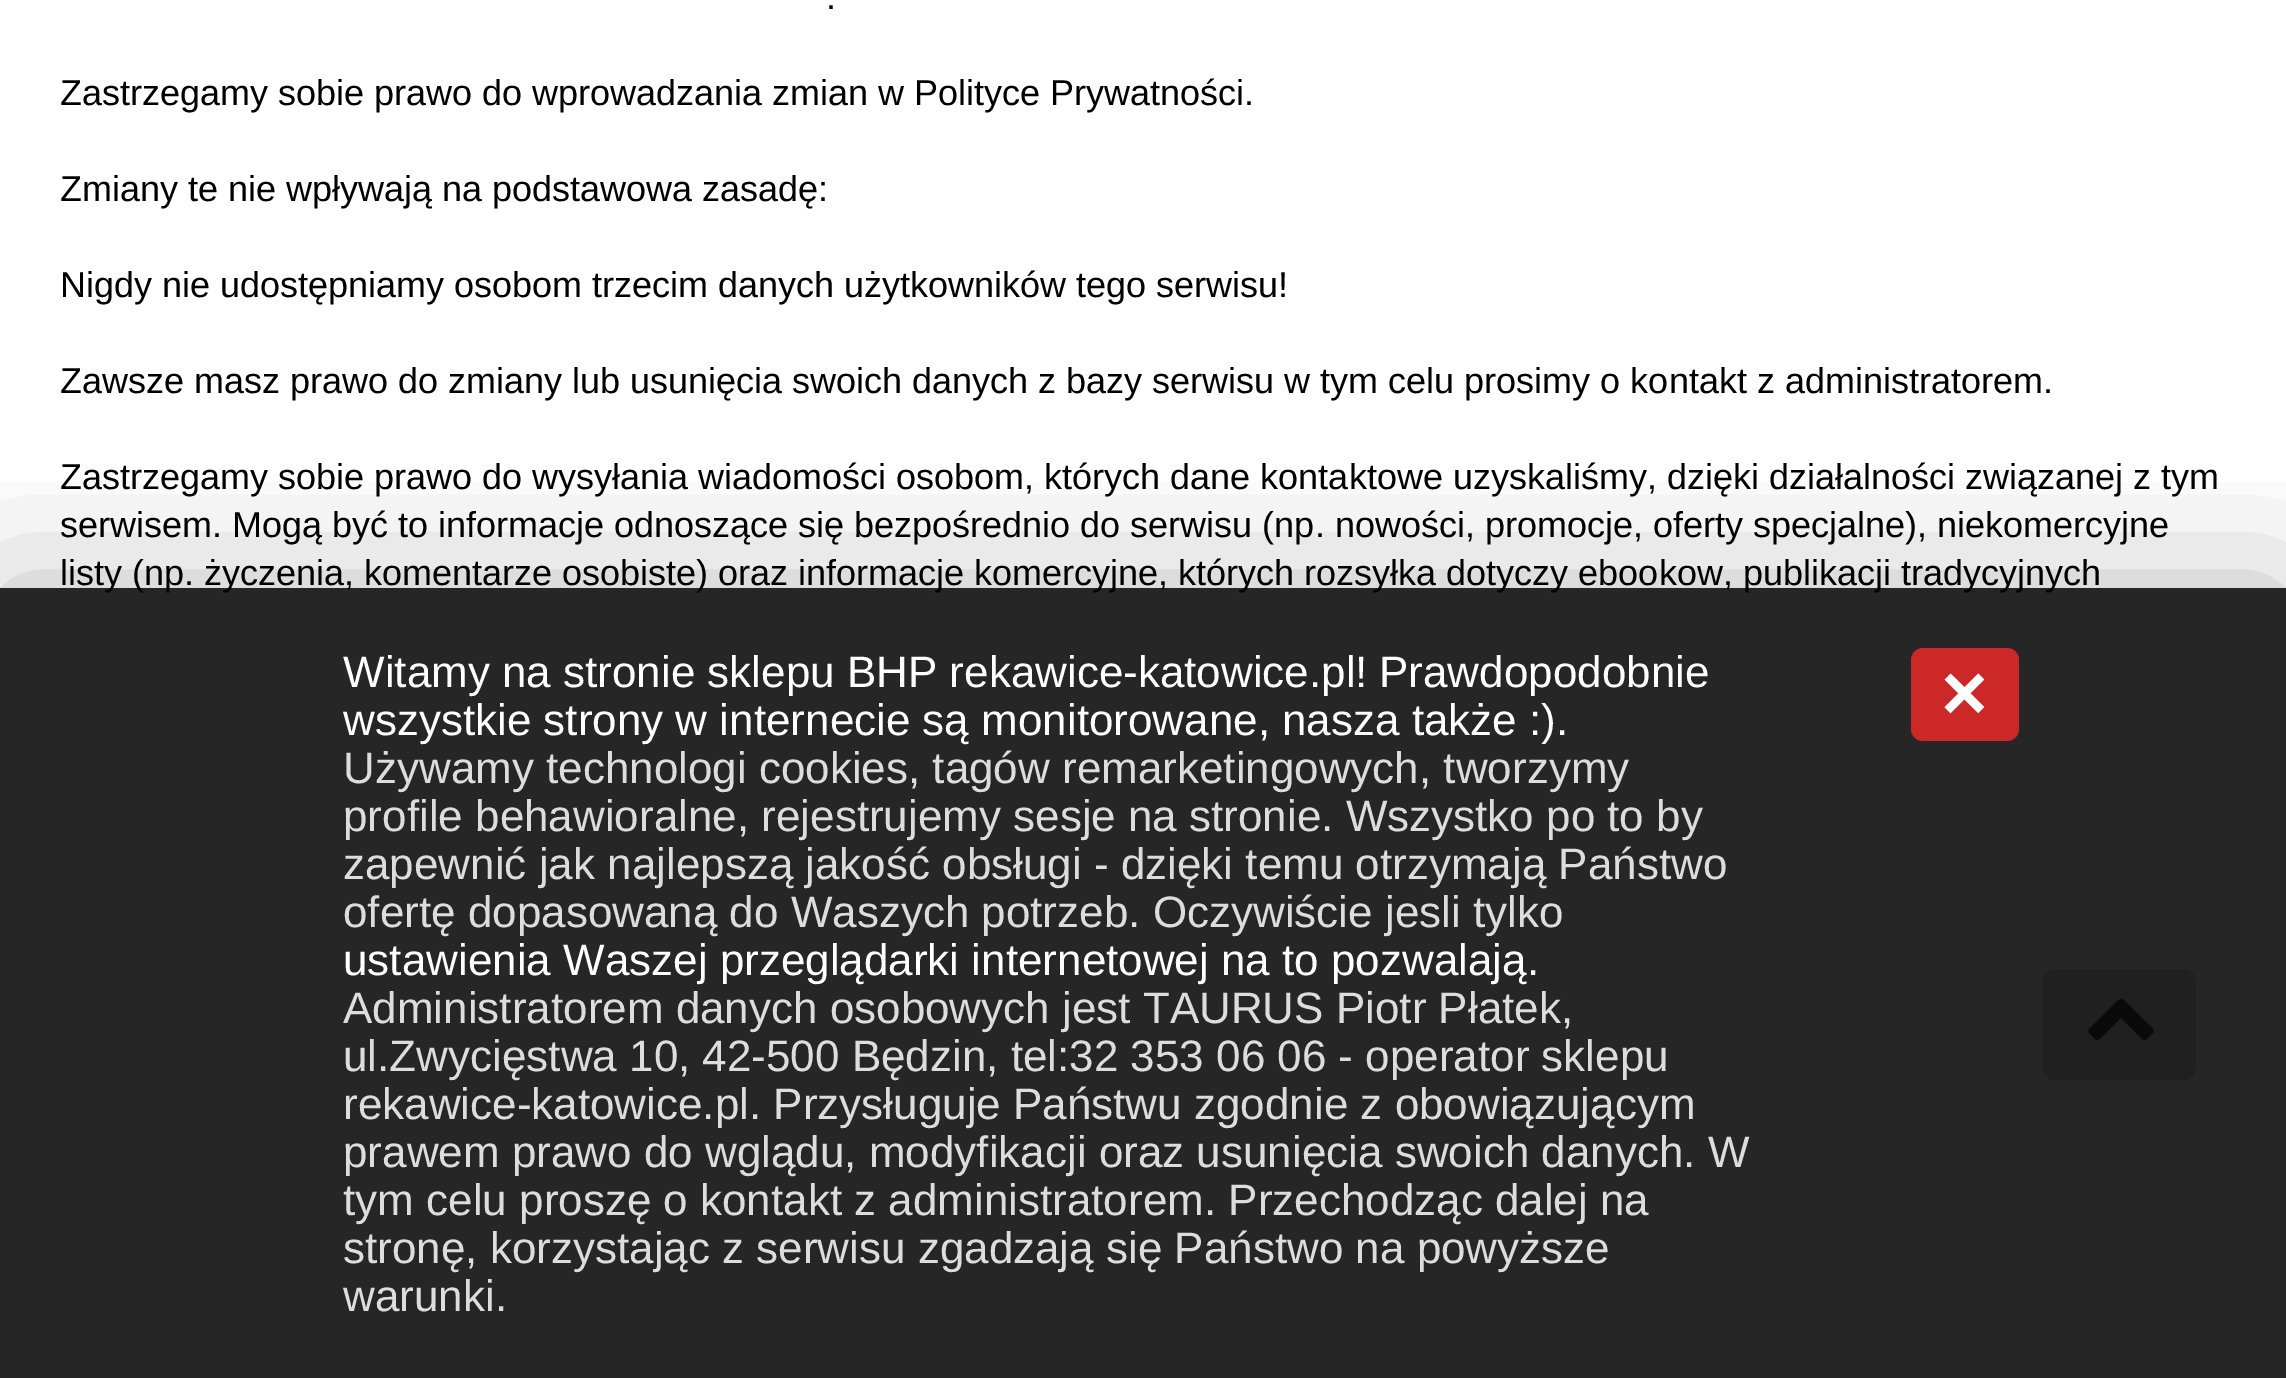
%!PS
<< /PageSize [2286 1378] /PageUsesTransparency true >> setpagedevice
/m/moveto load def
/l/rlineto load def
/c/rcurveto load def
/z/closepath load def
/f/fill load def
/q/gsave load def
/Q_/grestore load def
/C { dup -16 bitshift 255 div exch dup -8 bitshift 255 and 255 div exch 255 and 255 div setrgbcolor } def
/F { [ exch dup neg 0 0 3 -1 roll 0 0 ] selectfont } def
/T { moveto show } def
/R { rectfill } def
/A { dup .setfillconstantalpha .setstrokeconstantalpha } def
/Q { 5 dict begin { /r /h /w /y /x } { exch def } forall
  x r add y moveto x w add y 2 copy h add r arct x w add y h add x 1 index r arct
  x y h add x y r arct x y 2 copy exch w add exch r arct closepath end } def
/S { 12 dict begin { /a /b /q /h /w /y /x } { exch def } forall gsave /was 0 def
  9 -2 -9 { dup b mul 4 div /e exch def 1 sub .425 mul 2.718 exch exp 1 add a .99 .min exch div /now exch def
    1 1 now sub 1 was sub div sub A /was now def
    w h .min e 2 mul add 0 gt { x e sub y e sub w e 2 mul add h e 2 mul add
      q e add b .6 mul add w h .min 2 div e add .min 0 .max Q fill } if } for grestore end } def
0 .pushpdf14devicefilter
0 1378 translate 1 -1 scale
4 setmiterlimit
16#FFFFFF C
0 0 2286 1378 R
/LiberationSans-Regular 36 F
16#000000 C
(.) 826 9 T
(Zastrzegamy sobie prawo do wprowadzania zmian w Polityce Prywatności.) 60 105 T
(Zmiany te nie wpływają na podstawowa zasadę:) 60 201 T
(Nigdy nie udostępniamy osobom trzecim danych użytkowników tego serwisu!) 60 297 T
(Zawsze masz prawo do zmiany lub usunięcia swoich danych z bazy serwisu w tym celu prosimy o kontakt z administratorem.) 60 393 T
(Zastrzegamy sobie prawo do wysyłania wiadomości osobom, których dane kontaktowe uzyskaliśmy, dzięki działalności związanej z tym) 60 489 T
(serwisem. Mogą być to informacje odnoszące się bezpośrednio do serwisu \(np. nowości, promocje, oferty specjalne\), niekomercyjne) 60 537 T
(listy \(np. życzenia, komentarze osobiste\) oraz informacje komercyjne, których rozsyłka dotyczy ebookow, publikacji tradycyjnych) 60 585 T
0.15 A
2043 969 153 111 12 Q f
1 A
16#464646 C
2153 1033 m -8 7 -7 10 -14 3 c -18 -18 l -18 18 l -7 7 -6 5 -13 -2 c -4 -4 0 -6 4 -10 c 20 -20 l 8 -7 6 -7 14 0 c 20 20 l 1 1 8 6 5 9 c z f
q
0 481 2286 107 rectclip
16#000000 C
0 588 2286 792 0 75 .26 S
Q_
0.85 A
16#000000 C
0 588 2286 790 R
/LiberationSans-Regular 44 F
1 A
16#FFFFFF C
(Witamy na stronie sklepu BHP rekawice-katowice.pl!) 343 687 T
(Prawdopodobnie) 1379 687 T
(wszystkie strony w internecie są monitorowane, nasza także :\).) 343 735 T
16#DDDDDD C
(Używamy technologi cookies, tagów remarketingowych, tworzymy) 343 783 T
(profile behawioralne, rejestrujemy sesje na stronie. Wszystko po to by) 343 831 T
(zapewnić jak najlepszą jakość obsługi - dzięki temu otrzymają Państwo) 343 879 T
(ofertę dopasowaną do Waszych potrzeb. Oczywiście jesli tylko) 343 927 T
16#FFFFFF C
(ustawienia Waszej przeglądarki internetowej na to pozwalają.) 343 975 T
16#DDDDDD C
(Administratorem danych osobowych jest TAURUS Piotr Płatek,) 343 1023 T
(ul.Zwycięstwa 10, 42-500 Będzin, tel:32 353 06 06 - operator sklepu) 343 1071 T
(rekawice-katowice.pl. Przysługuje Państwu zgodnie z obowiązującym) 343 1119 T
(prawem prawo do wglądu, modyfikacji oraz usunięcia swoich danych. W) 343 1167 T
(tym celu proszę o kontakt z administratorem. Przechodząc dalej na) 343 1215 T
(stronę, korzystając z serwisu zgadzają się Państwo na powyższe) 343 1263 T
(warunki.) 343 1311 T
16#CC2828 C
1911 648 108 93 12 Q f
/LiberationSans-Bold 80 F
16#FFFFFF C
(×) 1941 720 T
.poppdf14devicefilter showpage
